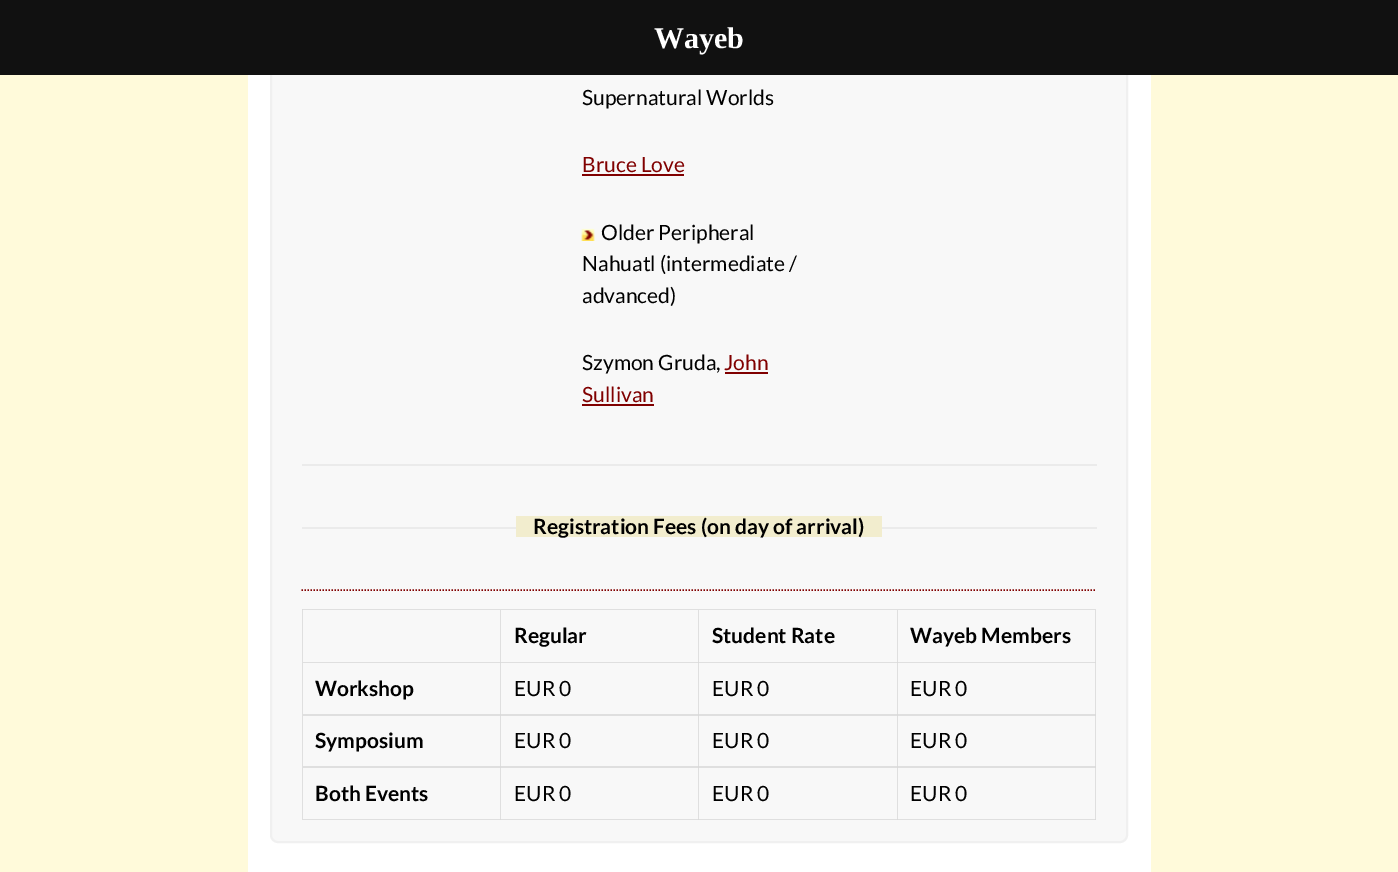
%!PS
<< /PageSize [1398 872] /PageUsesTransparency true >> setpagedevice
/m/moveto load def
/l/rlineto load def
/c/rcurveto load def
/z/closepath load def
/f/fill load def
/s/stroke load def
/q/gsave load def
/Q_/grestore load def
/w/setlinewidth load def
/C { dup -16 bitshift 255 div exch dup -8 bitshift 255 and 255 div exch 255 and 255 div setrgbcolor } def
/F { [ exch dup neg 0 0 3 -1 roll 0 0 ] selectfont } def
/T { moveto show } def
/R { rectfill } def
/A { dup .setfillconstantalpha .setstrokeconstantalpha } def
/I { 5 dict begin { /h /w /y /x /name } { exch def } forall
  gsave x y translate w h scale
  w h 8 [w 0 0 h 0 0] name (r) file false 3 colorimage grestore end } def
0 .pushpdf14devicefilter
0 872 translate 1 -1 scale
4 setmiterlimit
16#FFFADA C
0 0 1398 872 R
16#FFFFFF C
248 75 903 797 R
16#F8F8F8 C
271 -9 m 856 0 l 0 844 l 0 4 -3 7 -7 7 c -842 0 l -4 0 -7 -3 -7 -7 c z q f Q_
16#F0F0F0 C
2 w
s
16#111111 C
0 0 1398 75 R
/LiberationSerif-Bold 30 F
16#FFFFFF C
(Wayeb) 654 48 T
/Lato-Regular 21 F
16#000000 C
(Supernatural Worlds) 582 105 T
16#800000 C
(Bruce Love) 582 172 T
582 174 102 2 R
(1.rgb) 581 228 14 13 I
16#000000 C
(Older Peripheral) 601 240 T
(Nahuatl \(intermediate /) 582 271 T
(advanced\)) 582 303 T
(Szymon Gruda,) 582 370 T
16#800000 C
(John) 724 370 T
725 372 43 2 R
(Sullivan) 582 402 T
582 404 72 2 R
16#EBEBEB C
302 464 795 2 R
302 527 214 2 R
16#F2EDCE C
516 516 366 21 R
/Lato-Bold 21 F
16#000000 C
(Registration Fees \(on day of arrival\)) 533 534 T
16#EBEBEB C
882 527 215 2 R
16#800000 C
1.5 w
[1.5 1.5] 0 setdash
301.5 590 m 795 0 l s
16#DFDFDF C
302 609 m 794 0 l 0 1 l -793 0 l z f
0.1 A
16#000000 C
302 820 m 0 -211 l 1 1 l 0 210 l z f
1 A
16#DFDFDF C
501 610 m 0 53 l -1 -1 l 0 -52 l z f
0.1 A
16#000000 C
501 663 m -198 0 l 0 -1 l 197 0 l z f
1 A
16#DFDFDF C
699 610 m 0 53 l -1 -1 l 0 -52 l z f
0.1 A
16#000000 C
699 663 m -198 0 l 0 -1 l 197 0 l z f
1 A
(Regular) 514 643 T
16#DFDFDF C
898 610 m 0 53 l -1 -1 l 0 -52 l z f
0.1 A
16#000000 C
898 663 m -199 0 l 0 -1 l 198 0 l z f
1 A
(Student Rate) 712 643 T
16#DFDFDF C
1096 610 m 0 53 l -1 -1 l 0 -52 l z f
0.1 A
16#000000 C
1096 663 m -198 0 l 0 -1 l 197 0 l z f
1 A
(Wayeb Members) 910 643 T
16#DFDFDF C
501 663 m 0 53 l -1 -2 l 0 -51 l z f
0.1 A
16#000000 C
501 716 m -198 0 l 0 -2 l 197 0 l z f
1 A
(Workshop) 315 696 T
16#DFDFDF C
699 663 m 0 53 l -1 -2 l 0 -51 l z f
0.1 A
16#000000 C
699 716 m -198 0 l 0 -2 l 197 0 l z f
/Lato-Regular 21 F
1 A
(EUR 0) 514 696 T
16#DFDFDF C
898 663 m 0 53 l -1 -2 l 0 -51 l z f
0.1 A
16#000000 C
898 716 m -199 0 l 0 -2 l 198 0 l z f
1 A
(EUR 0) 712 696 T
16#DFDFDF C
1096 663 m 0 53 l -1 -2 l 0 -51 l z f
0.1 A
16#000000 C
1096 716 m -198 0 l 0 -2 l 197 0 l z f
1 A
(EUR 0) 910 696 T
16#DFDFDF C
501 716 m 0 52 l -1 -2 l 0 -50 l z f
0.1 A
16#000000 C
501 768 m -198 0 l 0 -2 l 197 0 l z f
/Lato-Bold 21 F
1 A
(Symposium) 315 748 T
16#DFDFDF C
699 716 m 0 52 l -1 -2 l 0 -50 l z f
0.1 A
16#000000 C
699 768 m -198 0 l 0 -2 l 197 0 l z f
/Lato-Regular 21 F
1 A
(EUR 0) 514 748 T
16#DFDFDF C
898 716 m 0 52 l -1 -2 l 0 -50 l z f
0.1 A
16#000000 C
898 768 m -199 0 l 0 -2 l 198 0 l z f
1 A
(EUR 0) 712 748 T
16#DFDFDF C
1096 716 m 0 52 l -1 -2 l 0 -50 l z f
0.1 A
16#000000 C
1096 768 m -198 0 l 0 -2 l 197 0 l z f
1 A
(EUR 0) 910 748 T
16#DFDFDF C
501 768 m 0 52 l -1 -1 l 0 -51 l z f
0.1 A
16#000000 C
501 820 m -198 0 l 0 -1 l 197 0 l z f
/Lato-Bold 21 F
1 A
(Both Events) 315 801 T
16#DFDFDF C
699 768 m 0 52 l -1 -1 l 0 -51 l z f
0.1 A
16#000000 C
699 820 m -198 0 l 0 -1 l 197 0 l z f
/Lato-Regular 21 F
1 A
(EUR 0) 514 801 T
16#DFDFDF C
898 768 m 0 52 l -1 -1 l 0 -51 l z f
0.1 A
16#000000 C
898 820 m -199 0 l 0 -1 l 198 0 l z f
1 A
(EUR 0) 712 801 T
16#DFDFDF C
1096 768 m 0 52 l -1 -1 l 0 -51 l z f
0.1 A
16#000000 C
1096 820 m -198 0 l 0 -1 l 197 0 l z f
1 A
(EUR 0) 910 801 T
.poppdf14devicefilter showpage
